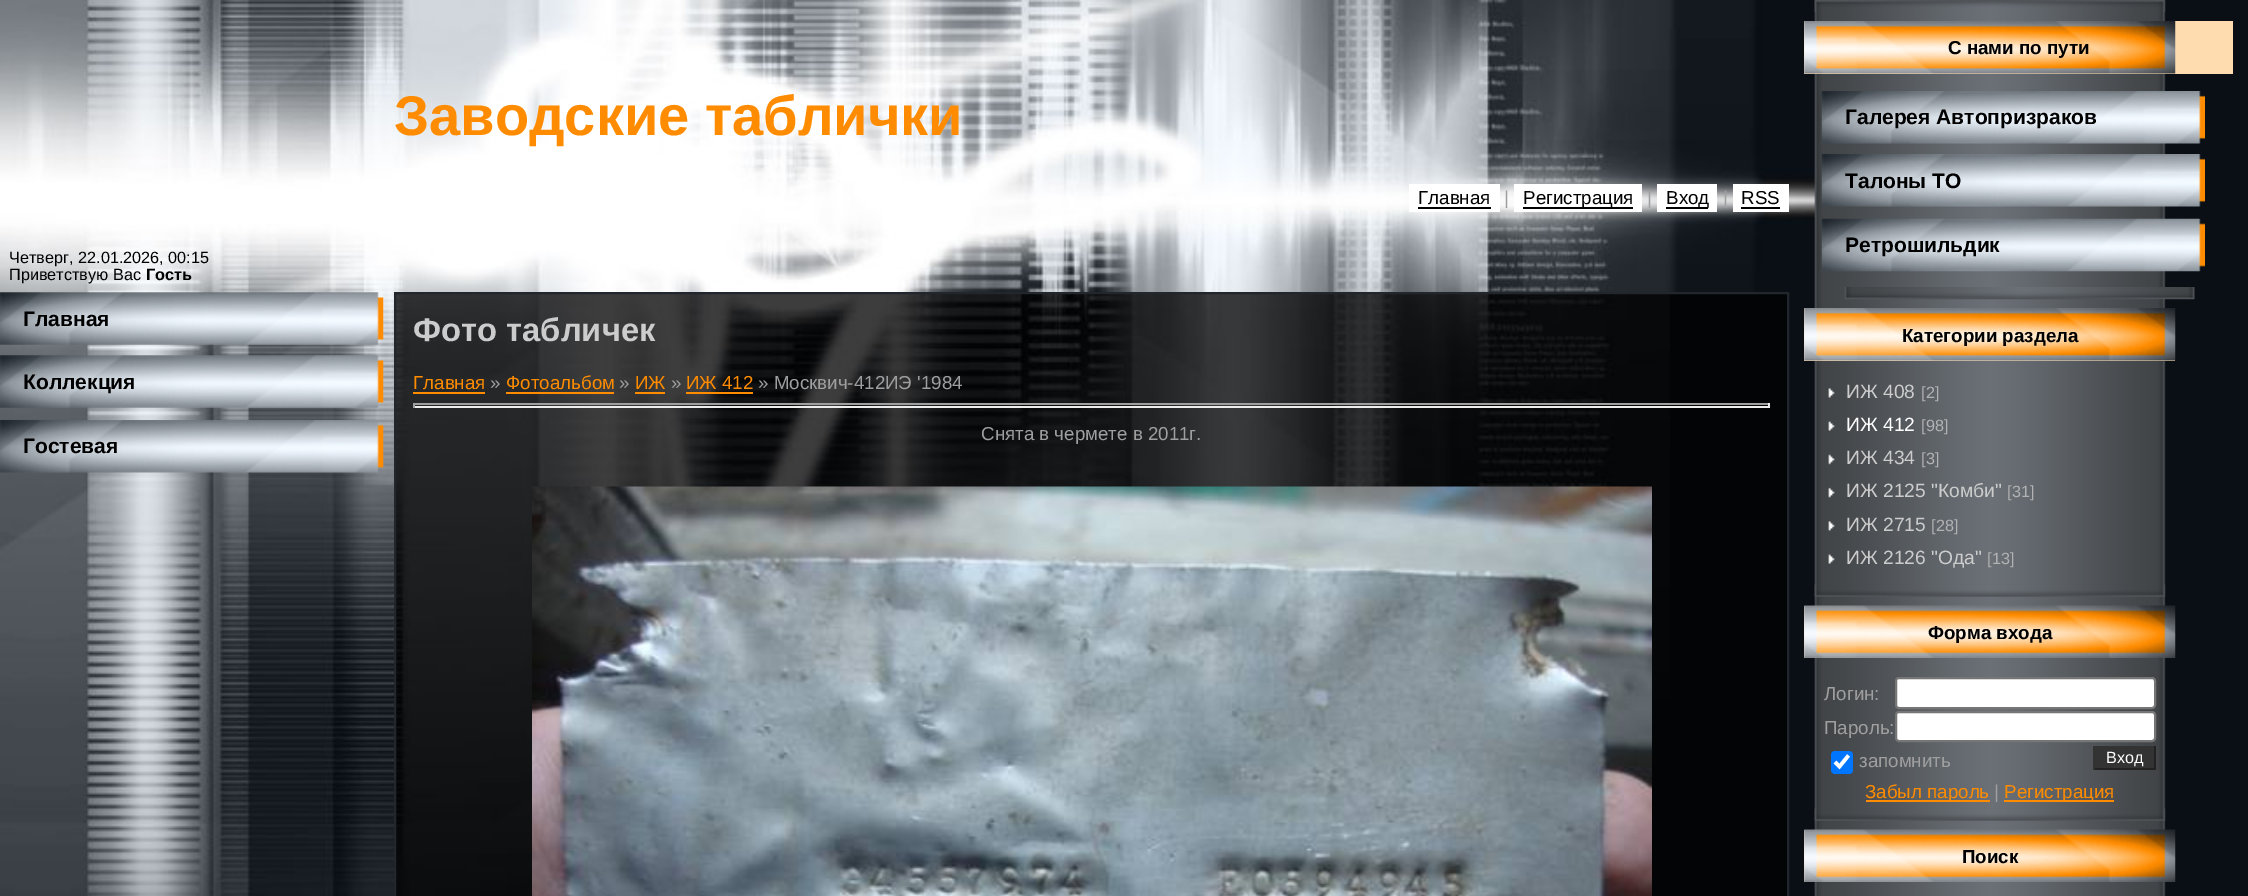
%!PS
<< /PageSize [2248 896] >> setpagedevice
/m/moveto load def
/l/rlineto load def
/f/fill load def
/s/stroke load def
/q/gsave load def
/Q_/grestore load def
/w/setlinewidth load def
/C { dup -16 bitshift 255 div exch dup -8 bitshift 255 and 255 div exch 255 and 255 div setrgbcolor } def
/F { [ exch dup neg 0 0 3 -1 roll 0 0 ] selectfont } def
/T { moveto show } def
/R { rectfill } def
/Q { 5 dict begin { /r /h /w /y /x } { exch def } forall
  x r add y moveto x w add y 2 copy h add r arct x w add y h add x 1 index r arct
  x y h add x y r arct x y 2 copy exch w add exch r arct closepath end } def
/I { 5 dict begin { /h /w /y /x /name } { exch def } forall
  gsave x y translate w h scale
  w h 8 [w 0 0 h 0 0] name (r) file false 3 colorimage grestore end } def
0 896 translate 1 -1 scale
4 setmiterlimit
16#090F15 C
0 0 2248 896 R
(1.rgb) 0 0 1816 896 I
/LiberationSans-Bold 56 F
16#FF8C00 C
(Заводские таблички) 394 135 T
16#FFFFFF C
1409 184 91 28 R
/LiberationSans-Regular 18.75 F
16#000000 C
(Главная) 1418 204 T
1418 207 73 2 R
16#9F9F9F C
(|) 1504 204 T
16#FFFFFF C
1514 184 128 28 R
16#000000 C
1523 207 110 2 R
(Регистрация) 1523 204 T
16#9F9F9F C
(|) 1647 204 T
16#FFFFFF C
1657 184 60 28 R
16#000000 C
1666 207 42 2 R
(Вход) 1666 204 T
16#9F9F9F C
(|) 1723 204 T
16#FFFFFF C
1733 184 56 28 R
16#000000 C
(RSS) 1741 204 T
1741 207 39 2 R
/LiberationSans-Regular 16.25 F
(Четверг, 22.01.2026, 00:15) 9 263 T
(Приветствую Вас) 9 280 T
/LiberationSans-Bold 16.25 F
(Гость) 146 280 T
(2.rgb) 0 292 384 53 I
/LiberationSans-Bold 21 F
(Главная) 23 326 T
(3.rgb) 0 355 384 53 I
(Коллекция) 23 389 T
(4.rgb) 0 420 384 53 I
(Гостевая) 23 453 T
16#020405 C
1670 294 117 602 R
(5.rgb) 396 294 1274 602 I
16#21272D C
2 w
395 293 1393 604 rectstroke
/LiberationSans-Bold 32.75 F
16#CCCCCC C
(Фото табличек) 413 341 T
/LiberationSans-Regular 18.75 F
16#FF8C00 C
(Главная) 413 389 T
413 392 72 2 R
16#9F9F9F C
(») 490 389 T
16#FF8C00 C
(Фотоальбом) 506 389 T
506 392 108 2 R
16#9F9F9F C
(») 619 389 T
16#FF8C00 C
(ИЖ) 635 389 T
635 392 30 2 R
16#9F9F9F C
(») 671 389 T
16#FF8C00 C
(ИЖ 412) 686 389 T
686 392 67 2 R
16#9F9F9F C
(» Москвич-412ИЭ '1984) 758 389 T
413 403 1356 2 R
16#EEEEEE C
1768 403 2 5 R
413 406 1356 2 R
16#9F9F9F C
413 403 2 5 R
(Снята в чермете в 2011г.) 981 440 T
(6.rgb) 532 486 1120 410 I
(7.rgb) 1814 0 352 896 I
(8.rgb) 1814 0 352 12 I
16#FFDCB0 C
1804 21 429 53 R
(9.rgb) 1804 21 372 53 I
/LiberationSans-Bold 18.75 F
16#000000 C
(С нами по пути) 1948 54 T
(10.rgb) 1844 287 351 13 I
(11.rgb) 1821 91 384 53 I
/LiberationSans-Bold 21 F
(Галерея Автопризраков) 1845 124 T
(12.rgb) 1821 154 384 53 I
(Талоны ТО) 1845 188 T
(13.rgb) 1821 218 384 54 I
(Ретрошильдик) 1845 252 T
16#FFDCB0 C
1804 308 371 53 R
(14.rgb) 1804 308 372 53 I
/LiberationSans-Bold 18.75 F
16#000000 C
(Категории раздела) 1902 342 T
(15.rgb) 1814 584 352 13 I
(16.rgb) 1828 388 7 10 I
/LiberationSans-Regular 19.25 F
16#CCCCCC C
(ИЖ 408) 1846 398 T
/LiberationSans-Regular 16.25 F
16#B2B2B2 C
([2]) 1921 398 T
(17.rgb) 1828 421 7 10 I
/LiberationSans-Regular 19.25 F
16#FFFFFF C
(ИЖ 412) 1846 431 T
/LiberationSans-Regular 16.25 F
16#B2B2B2 C
([98]) 1921 431 T
(18.rgb) 1828 454 7 11 I
/LiberationSans-Regular 19.25 F
16#CCCCCC C
(ИЖ 434) 1846 464 T
/LiberationSans-Regular 16.25 F
16#B2B2B2 C
([3]) 1921 464 T
(19.rgb) 1828 487 7 11 I
/LiberationSans-Regular 19.25 F
16#CCCCCC C
(ИЖ 2125 "Комби") 1846 497 T
/LiberationSans-Regular 16.25 F
16#B2B2B2 C
([31]) 2007 497 T
(16.rgb) 1828 521 7 10 I
/LiberationSans-Regular 19.25 F
16#CCCCCC C
(ИЖ 2715) 1846 531 T
/LiberationSans-Regular 16.25 F
16#B2B2B2 C
([28]) 1931 531 T
(17.rgb) 1828 554 7 10 I
/LiberationSans-Regular 19.25 F
16#CCCCCC C
(ИЖ 2126 "Ода") 1846 564 T
/LiberationSans-Regular 16.25 F
16#B2B2B2 C
([13]) 1987 564 T
(20.rgb) 1804 605 372 53 I
/LiberationSans-Bold 18.75 F
16#000000 C
(Форма входа) 1928 639 T
(15.rgb) 1814 808 352 13 I
/LiberationSans-Regular 18.75 F
16#9F9F9F C
(Логин:) 1824 700 T
16#FFFFFF C
1896 678 259 30 3 Q q f Q_
16#767676 C
s
16#9F9F9F C
(Пароль:) 1824 734 T
16#FFFFFF C
1896 712 259 29 3 Q q f Q_
16#767676 C
s
16#0075FF C
1831 751 22 23 4 Q f
16#FFFFFF C
3.6 w
1835 762 m 4.5 4.5 l 9 -11 l s
16#9F9F9F C
(запомнить) 1859 767 T
16#333333 C
2095 746 59 22 R
16#222222 C
2154 746 2 24 R
2093 768 63 2 R
16#333333 C
2093 746 2 24 R
/LiberationSans-Regular 16.25 F
16#FFFFFF C
(Вход) 2106 763 T
16#FF8C00 C
1866 800 124 2 R
/LiberationSans-Regular 18.75 F
(Забыл пароль) 1865 798 T
16#9F9F9F C
(|) 1994 798 T
16#FF8C00 C
2004 800 110 2 R
(Регистрация) 2004 798 T
(20.rgb) 1804 829 372 53 I
/LiberationSans-Bold 18.75 F
16#000000 C
(Поиск) 1962 863 T
showpage
